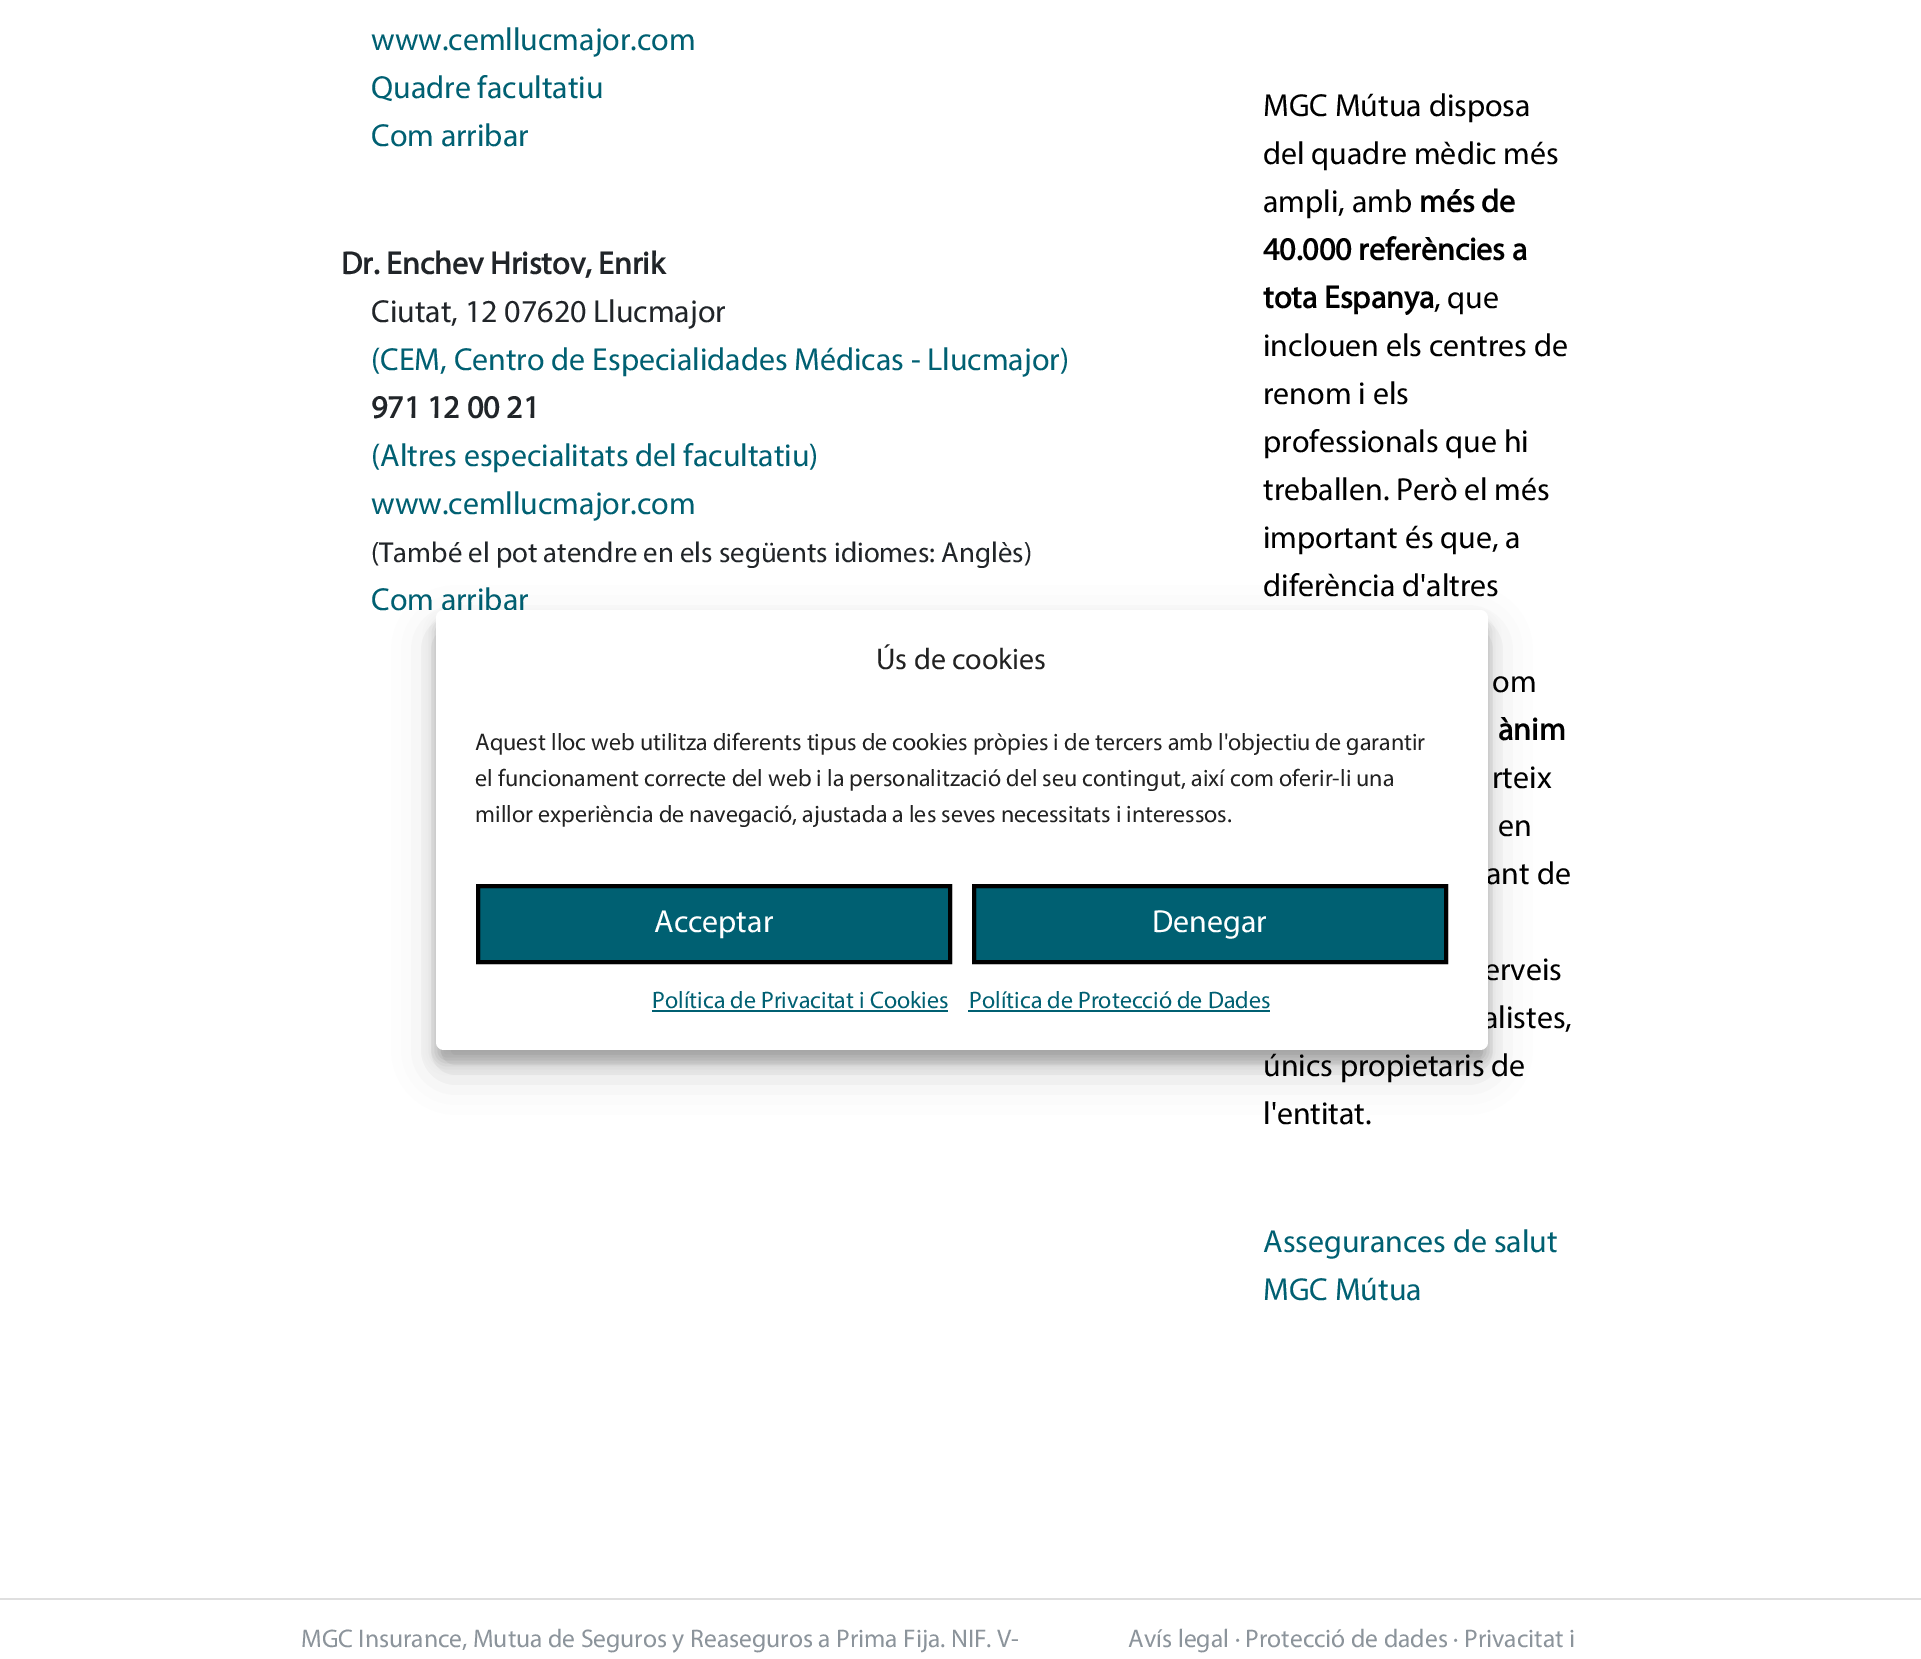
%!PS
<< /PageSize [1921 1659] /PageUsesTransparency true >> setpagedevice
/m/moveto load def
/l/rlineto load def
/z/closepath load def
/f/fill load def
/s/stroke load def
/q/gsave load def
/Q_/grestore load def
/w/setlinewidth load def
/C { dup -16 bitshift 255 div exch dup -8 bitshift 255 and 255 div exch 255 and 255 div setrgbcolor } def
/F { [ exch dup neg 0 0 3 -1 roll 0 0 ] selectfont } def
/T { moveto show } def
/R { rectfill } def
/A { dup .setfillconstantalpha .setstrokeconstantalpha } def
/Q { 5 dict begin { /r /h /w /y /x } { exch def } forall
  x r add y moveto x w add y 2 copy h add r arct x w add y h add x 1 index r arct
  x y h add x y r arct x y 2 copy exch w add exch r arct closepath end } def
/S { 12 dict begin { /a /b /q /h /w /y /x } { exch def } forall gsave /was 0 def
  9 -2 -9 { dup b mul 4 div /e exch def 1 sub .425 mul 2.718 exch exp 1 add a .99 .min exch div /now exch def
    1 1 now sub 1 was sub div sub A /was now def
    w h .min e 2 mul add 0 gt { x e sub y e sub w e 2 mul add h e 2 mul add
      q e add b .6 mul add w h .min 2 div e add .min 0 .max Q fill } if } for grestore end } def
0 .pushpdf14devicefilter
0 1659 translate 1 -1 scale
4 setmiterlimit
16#FFFFFF C
0 0 1921 1659 R
/Myriad-Regular 32 F
16#006072 C
(www.cemllucmajor.com) 371 50 T
(Quadre facultatiu) 371 98 T
(Com arribar) 371 146 T
/Myriad-Bold 32 F
16#212529 C
(Dr. Enchev Hristov, Enrik) 341 274 T
/Myriad-Regular 32 F
(Ciutat, 12 07620 Llucmajor) 371 322 T
16#006072 C
(\(CEM, Centro de Especialidades Médicas - Llucmajor\)) 371 370 T
/Myriad-Bold 32 F
16#212529 C
(971 12 00 21) 371 418 T
/Myriad-Regular 32 F
16#006072 C
(\(Altres especialitats del facultatiu\)) 371 466 T
(www.cemllucmajor.com) 371 514 T
/Myriad-Regular 28.8 F
16#212529 C
(\(També el pot atendre en els següents idiomes: Anglès\)) 371 562 T
/Myriad-Regular 32 F
16#006072 C
(Com arribar) 371 610 T
16#000000 C
(MGC Mútua disposa) 1263 116 T
(del quadre mèdic més) 1263 164 T
(ampli, amb) 1263 212 T
/Myriad-Bold 32 F
(més de) 1419 212 T
(40.000 referències a) 1263 260 T
(tota Espanya) 1263 308 T
/Myriad-Regular 32 F
(, que) 1434 308 T
(inclouen els centres de) 1263 356 T
(renom i els) 1263 404 T
(professionals que hi) 1263 452 T
(treballen. Però el més) 1263 500 T
(important és que, a) 1263 548 T
(diferència d'altres) 1263 596 T
(om) 1492 692 T
/Myriad-Bold 32 F
(ànim) 1498 740 T
/Myriad-Regular 32 F
(rteix) 1492 788 T
(en) 1498 836 T
(ant de) 1486 884 T
(erveis) 1484 980 T
(alistes,) 1483 1028 T
(únics propietaris de) 1263 1076 T
(l'entitat.) 1263 1124 T
16#006072 C
(Assegurances de salut) 1263 1252 T
(MGC Mútua) 1263 1300 T
16#000000 C
436 622 1052 440 8 6 .23 S
436 630 1052 440 8 20 .19 S
16#FFFFFF C
436 610 1052 440 8 Q f
/Myriad-Regular 30 F
16#222222 C
(Ús de cookies) 876 669 T
/Myriad-Regular 24 F
(Aquest lloc web utilitza diferents tipus de cookies pròpies i de tercers amb l'objectiu de garantir) 475 750 T
(el funcionament correcte del web i la personalització del seu contingut, així com oferir-li una) 475 786 T
(millor experiència de navegació, ajustada a les seves necessitats i interessos.) 475 822 T
16#006072 C
478 886 m 472 0 l 0 76 l -472 0 l z q f Q_
16#000000 C
4 w
s
/Myriad-Regular 32 F
16#FFFFFF C
(Acceptar) 654 932 T
16#006072 C
974 886 m 472 0 l 0 76 l -472 0 l z q f Q_
16#000000 C
s
16#FFFFFF C
(Denegar) 1152 932 T
/Myriad-Regular 24 F
16#006072 C
(Política de Privacitat i Cookies) 652 1008 T
652 1010 296 2 R
(Política de Protecció de Dades) 969 1008 T
968 1010 302 2 R
16#DFDFDF C
0 1598 1921 2 R
/Myriad-Regular 25.6 F
16#8C949B C
(MGC Insurance, Mutua de Seguros y Reaseguros a Prima Fija. NIF. V-) 301 1647 T
(Avís legal · Protecció de dades · Privacitat i) 1128 1647 T
.poppdf14devicefilter showpage
